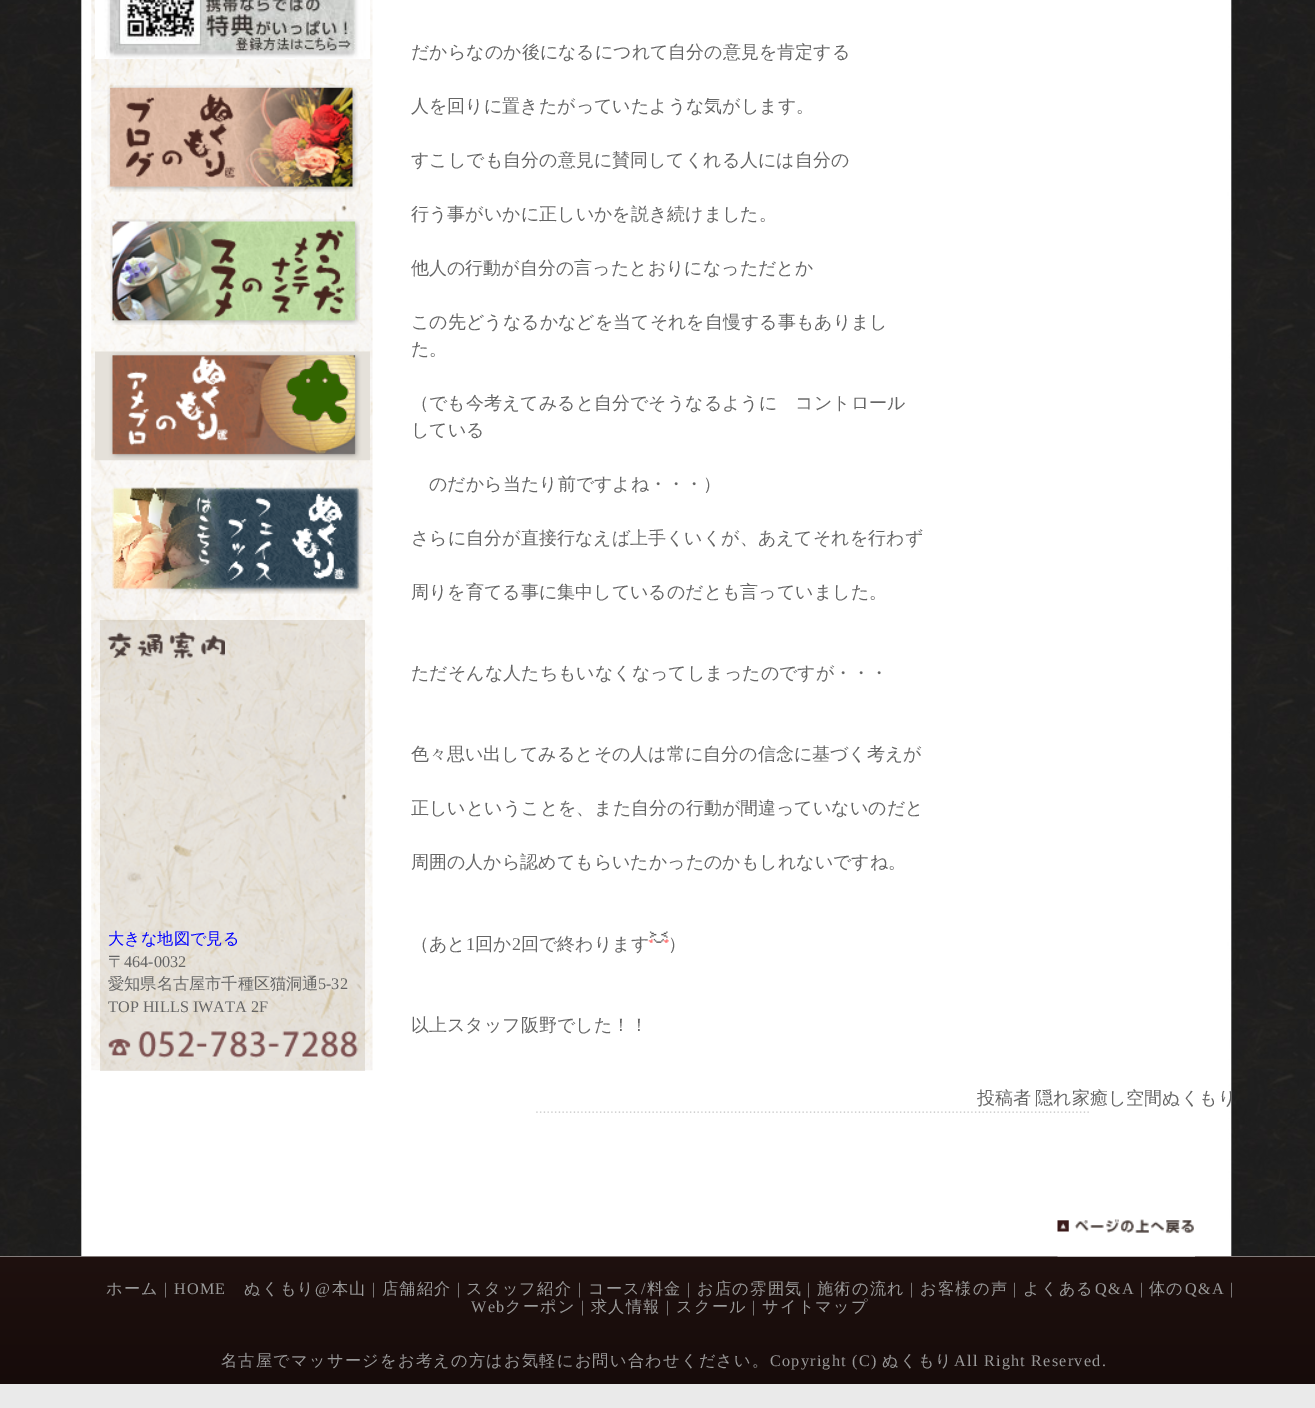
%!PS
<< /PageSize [1315 1408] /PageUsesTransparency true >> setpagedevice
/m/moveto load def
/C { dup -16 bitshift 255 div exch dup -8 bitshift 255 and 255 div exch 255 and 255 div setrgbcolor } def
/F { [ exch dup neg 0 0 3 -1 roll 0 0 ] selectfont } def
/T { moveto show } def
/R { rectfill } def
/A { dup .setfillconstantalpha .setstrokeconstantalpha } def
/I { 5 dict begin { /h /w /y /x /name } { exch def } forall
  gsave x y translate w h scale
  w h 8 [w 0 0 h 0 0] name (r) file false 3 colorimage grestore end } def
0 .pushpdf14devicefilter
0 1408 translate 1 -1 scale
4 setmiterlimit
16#FFFFFF C
0 0 1315 1408 R
(1.rgb) 0 0 1315 1256 I
(2.rgb) 91 0 282 1071 I
(3.rgb) 95 0 275 59 I
(4.rgb) 107 85 251 107 I
(5.rgb) 110 219 250 106 I
(6.rgb) 95 351 275 110 I
(7.rgb) 112 487 251 107 I
0.15 A
16#725E3C C
100 620 265 451 R
1 A
(8.rgb) 107 631 118 28 I
/WenQuanYiZenHei-Medium 16.2 F
16#0000FF C
(大きな地図で見る) 108 944 T
16#666666 C
(〒) 108 967 T
/LiberationSerif-Regular 16.2 F
(464-0032) 124 967 T
/WenQuanYiZenHei-Medium 16.2 F
(愛知県名古屋市千種区猫洞通) 108 989 T
/LiberationSerif-Regular 16.2 F
(5-32) 318 989 T
(TOP HILLS IWATA 2F) 108 1012 T
(9.rgb) 108 1031 250 27 I
/WenQuanYiZenHei-Medium 18 F
(だからなのか後になるにつれて自分の意見を肯定する) 411 58 T
(人を回りに置きたがっていたような気がします。) 411 112 T
(すこしでも自分の意見に賛同してくれる人には自分の) 411 166 T
(行う事がいかに正しいかを説き続けました。) 411 220 T
(他人の行動が自分の言ったとおりになっただとか) 411 274 T
(この先どうなるかなどを当てそれを自慢する事もありまし) 411 328 T
(た。) 411 355 T
(（でも今考えてみると自分でそうなるように　コントロール) 411 409 T
(している) 411 436 T
(のだから当たり前ですよね・・・）) 429 490 T
(さらに自分が直接行なえば上手くいくが、あえてそれを行わず) 411 544 T
(周りを育てる事に集中しているのだとも言っていました。) 411 598 T
(ただそんな人たちもいなくなってしまったのですが・・・) 411 679 T
(色々思い出してみるとその人は常に自分の信念に基づく考えが) 411 760 T
(正しいということを、また自分の行動が間違っていないのだと) 411 814 T
(周囲の人から認めてもらいたかったのかもしれないですね。) 411 868 T
(（あと) 411 950 T
/LiberationSerif-Regular 18 F
(1) 466 950 T
/WenQuanYiZenHei-Medium 18 F
(回か) 475 950 T
/LiberationSerif-Regular 18 F
(2) 512 950 T
/WenQuanYiZenHei-Medium 18 F
(回で終わります) 521 950 T
(10.rgb) 648 931 21 12 I
(）) 668 950 T
(以上スタッフ阪野でした！！) 411 1031 T
(11.rgb) 536 1111 553 2 I
977 1104 m -1 0 32 (投稿者 隠れ家癒し空間ぬくもり) widthshow
16#EAEAEA C
0 1256 1315 152 R
(13.rgb) 0 1256 1315 128 I
(12.rgb) 1057 1219 138 38 I
/WenQuanYiZenHei-Medium 16.2 F
16#999999 C
106 1294 m 1.25 0 (ホーム) ashow
/LiberationSerif-Regular 16.2 F
164 1294 m 1.25 0 (| HOME) ashow
/WenQuanYiZenHei-Medium 16.2 F
244 1294 m 1.25 0 (ぬくもり) ashow
/LiberationSerif-Regular 16.2 F
315 1294 m 1.25 0 (@) ashow
/WenQuanYiZenHei-Medium 16.2 F
332 1294 m 1.25 0 (本山) ashow
/LiberationSerif-Regular 16.2 F
372 1294 m 1.25 0 (|) ashow
/WenQuanYiZenHei-Medium 16.2 F
382 1294 m 1.25 0 (店舗紹介) ashow
/LiberationSerif-Regular 16.2 F
457 1294 m 1.25 0 (|) ashow
/WenQuanYiZenHei-Medium 16.2 F
466 1294 m 1.25 0 (スタッフ紹介) ashow
/LiberationSerif-Regular 16.2 F
578 1294 m 1.25 0 (|) ashow
/WenQuanYiZenHei-Medium 16.2 F
588 1294 m 1.25 0 (コース) ashow
/LiberationSerif-Regular 16.2 F
641 1294 m 1.25 0 (/) ashow
/WenQuanYiZenHei-Medium 16.2 F
647 1294 m 1.25 0 (料金) ashow
/LiberationSerif-Regular 16.2 F
687 1294 m 1.25 0 (|) ashow
/WenQuanYiZenHei-Medium 16.2 F
697 1294 m 1.25 0 (お店の雰囲気) ashow
/LiberationSerif-Regular 16.2 F
807 1294 m 1.25 0 (|) ashow
/WenQuanYiZenHei-Medium 16.2 F
817 1294 m 1.25 0 (施術の流れ) ashow
/LiberationSerif-Regular 16.2 F
910 1294 m 1.25 0 (|) ashow
/WenQuanYiZenHei-Medium 16.2 F
920 1294 m 1.25 0 (お客様の声) ashow
/LiberationSerif-Regular 16.2 F
1013 1294 m 1.25 0 (|) ashow
/WenQuanYiZenHei-Medium 16.2 F
1023 1294 m 1.25 0 (よくある) ashow
/LiberationSerif-Regular 16.2 F
1095 1294 m 1.25 0 (Q&A |) ashow
/WenQuanYiZenHei-Medium 16.2 F
1149 1294 m 1.25 0 (体の) ashow
/LiberationSerif-Regular 16.2 F
1185 1294 m 1.25 0 (Q&A |) ashow
471 1312 m 1.25 0 (Web) ashow
/WenQuanYiZenHei-Medium 16.2 F
505 1312 m 1.25 0 (クーポン) ashow
/LiberationSerif-Regular 16.2 F
581 1312 m 1.25 0 (|) ashow
/WenQuanYiZenHei-Medium 16.2 F
591 1312 m 1.25 0 (求人情報) ashow
/LiberationSerif-Regular 16.2 F
666 1312 m 1.25 0 (|) ashow
/WenQuanYiZenHei-Medium 16.2 F
676 1312 m 1.25 0 (スクール) ashow
/LiberationSerif-Regular 16.2 F
752 1312 m 1.25 0 (|) ashow
/WenQuanYiZenHei-Medium 16.2 F
762 1312 m 1.25 0 (サイトマップ) ashow
221 1366 m 1.25 0 (名古屋でマッサージをお考えの方はお気軽にお問い合わせください。) ashow
/LiberationSerif-Regular 16.2 F
770 1366 m 1.25 0 (Copyright \(C\)) ashow
/WenQuanYiZenHei-Medium 16.2 F
882 1366 m 1.25 0 (ぬくもり) ashow
/LiberationSerif-Regular 16.2 F
954 1366 m 1.25 0 (All Right Reserved.) ashow
.poppdf14devicefilter showpage
